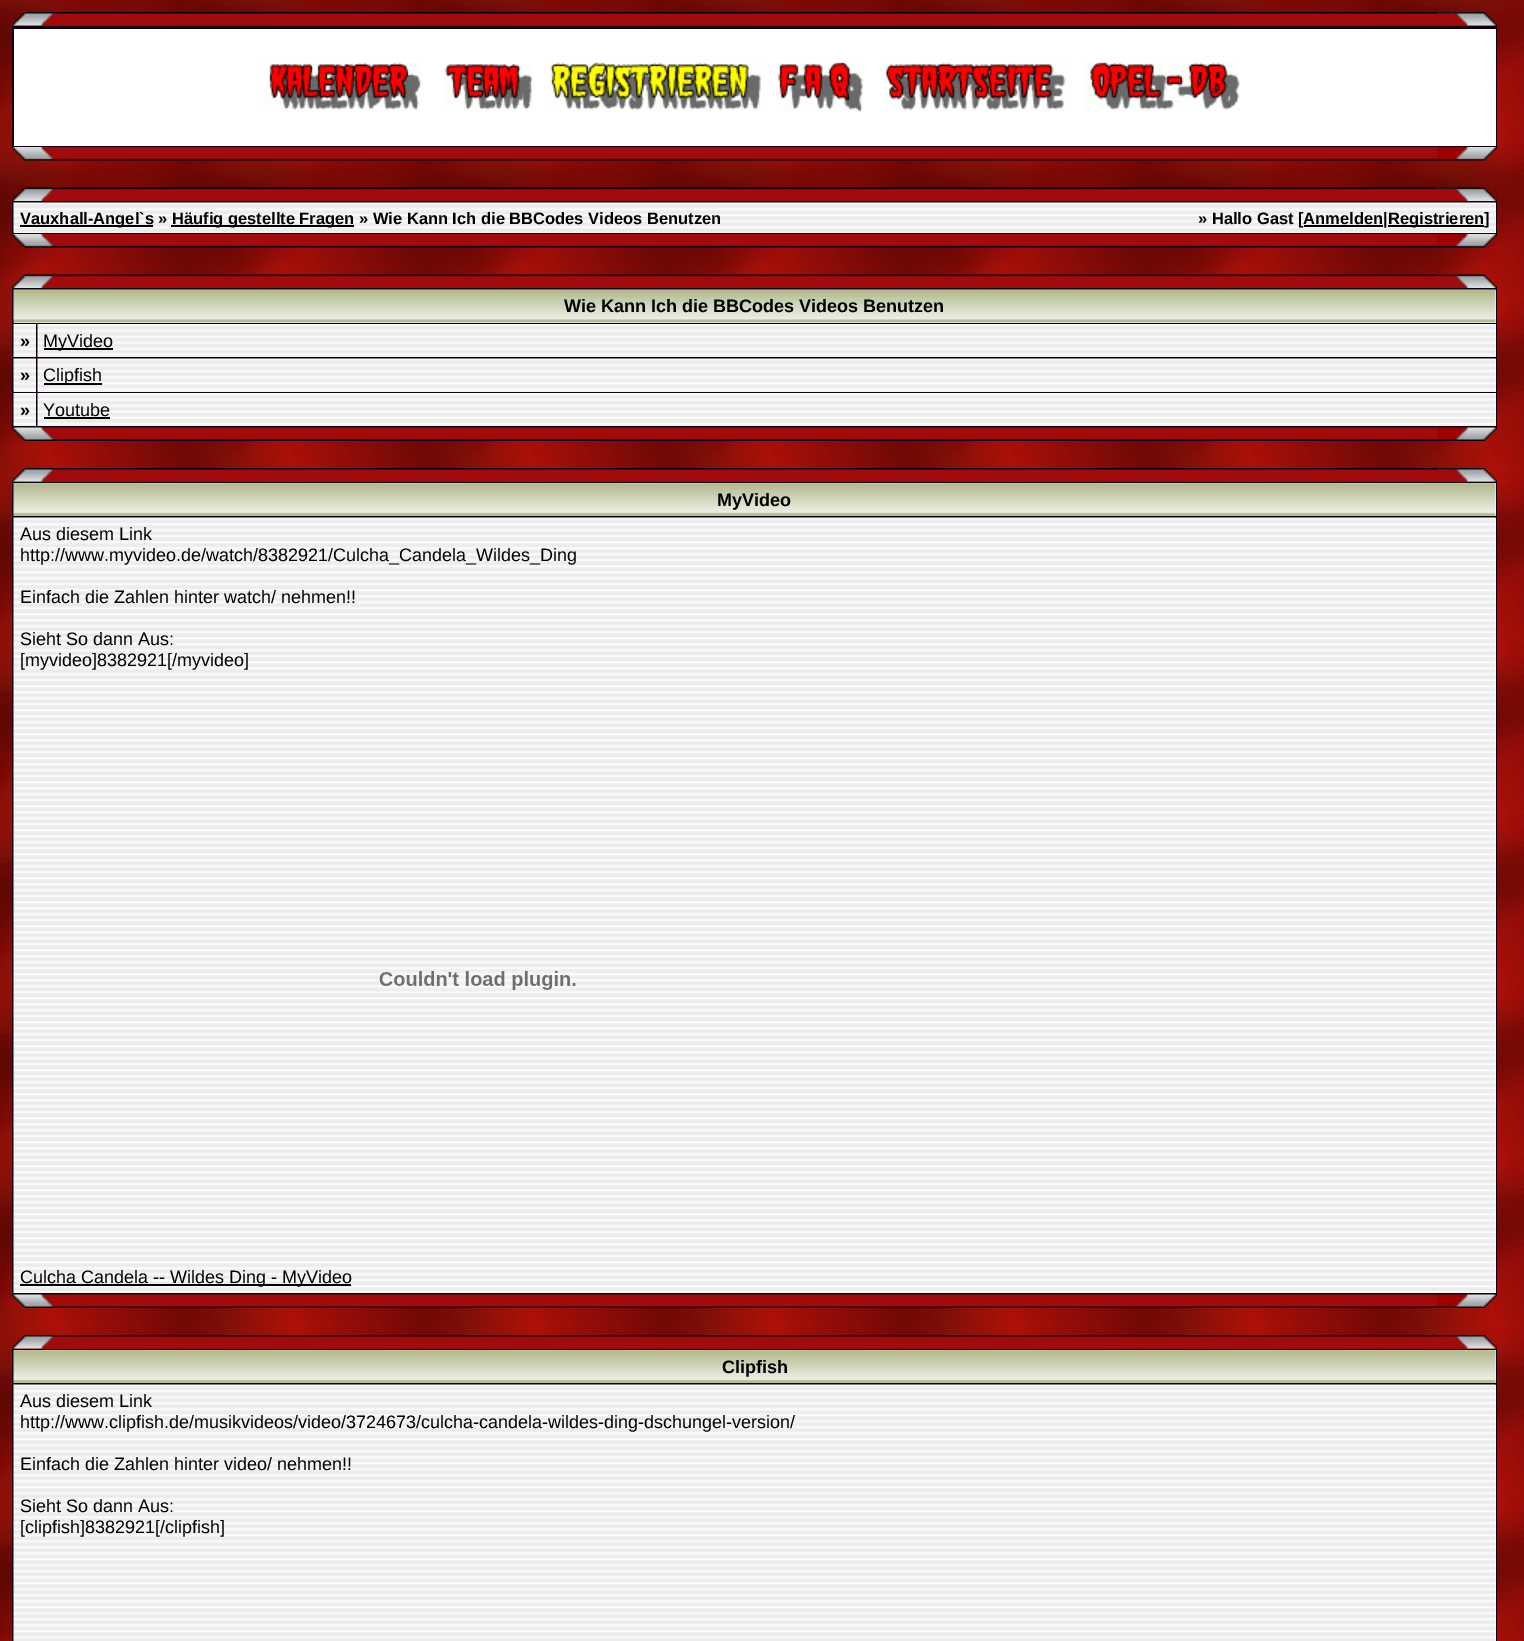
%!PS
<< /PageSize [1524 1641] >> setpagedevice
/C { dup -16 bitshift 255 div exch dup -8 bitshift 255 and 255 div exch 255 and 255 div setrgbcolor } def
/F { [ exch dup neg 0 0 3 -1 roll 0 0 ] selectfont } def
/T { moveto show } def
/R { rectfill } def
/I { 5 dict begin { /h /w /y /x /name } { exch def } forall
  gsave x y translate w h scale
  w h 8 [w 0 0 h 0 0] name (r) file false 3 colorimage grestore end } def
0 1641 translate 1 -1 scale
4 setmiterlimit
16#FFFFFF C
0 0 1524 1641 R
(1.rgb) 0 0 1524 1641 I
(2.rgb) 12 12 60 14 I
(3.rgb) 72 12 1365 14 I
(4.rgb) 1437 12 60 14 I
16#130011 C
12 26 1485 121 R
16#FFFFFF C
14 29 1482 117 R
(5.rgb) 263 62 158 48 I
(6.rgb) 445 64 88 46 I
(7.rgb) 550 62 211 48 I
(8.rgb) 778 62 85 50 I
(9.rgb) 884 62 182 48 I
(10.rgb) 1084 62 156 48 I
(11.rgb) 12 147 60 14 I
(12.rgb) 72 147 1365 14 I
(13.rgb) 1437 147 60 14 I
(14.rgb) 12 187 60 14 I
(15.rgb) 72 187 1365 14 I
(16.rgb) 1437 187 60 14 I
16#130011 C
12 201 1485 33 R
16#FFFFFF C
14 203 1482 30 R
(17.rgb) 13 202 1483 31 I
16#000000 C
20 225 133 2 R
/LiberationSans-Bold 16.5 F
(Vauxhall-Angel`s ») 20 224 T
171 225 183 2 R
(Häufig gestellte Fragen » Wie Kann Ich die BBCodes Videos Benutzen) 172 224 T
(» Hallo Gast [Anmelden|) 1198 224 T
1304 225 79 2 R
1388 225 96 2 R
(Registrieren]) 1388 224 T
(18.rgb) 12 234 60 14 I
(19.rgb) 72 234 1365 14 I
(20.rgb) 1437 234 60 14 I
(21.rgb) 12 274 60 14 I
(22.rgb) 72 274 1365 14 I
(23.rgb) 1437 274 60 14 I
16#130011 C
12 288 1485 140 R
16#FFFFFF C
14 290 1482 33 R
(24.rgb) 13 289 1483 34 I
/LiberationSans-Bold 18 F
16#000000 C
(Wie Kann Ich die BBCodes Videos Benutzen) 564 312 T
(25.rgb) 13 324 23 33 I
(») 20 347 T
16#FFFFFF C
1495 324 1 33 R
(26.rgb) 37 324 1459 33 I
16#000000 C
44 348 69 2 R
/LiberationSans-Regular 18 F
(MyVideo) 43 347 T
16#FFFFFF C
14 391 22 1 R
(27.rgb) 13 358 23 34 I
/LiberationSans-Bold 18 F
16#000000 C
(») 20 381 T
16#FFFFFF C
38 359 1458 33 R
(28.rgb) 37 358 1459 34 I
16#000000 C
44 383 58 2 R
/LiberationSans-Regular 18 F
(Clipfish) 43 381 T
(25.rgb) 13 393 23 33 I
/LiberationSans-Bold 18 F
(») 20 416 T
16#FFFFFF C
1495 393 1 33 R
(26.rgb) 37 393 1459 33 I
/LiberationSans-Regular 18 F
16#000000 C
(Youtube) 43 416 T
44 417 66 2 R
(29.rgb) 12 427 60 14 I
(30.rgb) 72 427 1365 14 I
(31.rgb) 1437 427 60 14 I
(32.rgb) 12 468 60 14 I
(33.rgb) 72 468 1365 14 I
(34.rgb) 1437 468 60 14 I
16#130011 C
12 482 1485 813 R
16#FFFFFF C
1495 483 1 33 R
(35.rgb) 13 483 1483 33 I
/LiberationSans-Bold 18 F
16#000000 C
(MyVideo) 717 506 T
16#FFFFFF C
1495 518 1 775 R
(36.rgb) 13 517 1483 776 I
/LiberationSans-Regular 18 F
16#000000 C
(Aus diesem Link) 20 540 T
(http://www.myvideo.de/watch/8382921/Culcha_Candela_Wildes_Ding) 20 561 T
(Einfach die Zahlen hinter watch/ nehmen!!) 20 603 T
(Sieht So dann Aus:) 20 645 T
([myvideo]8382921[/myvideo]) 20 666 T
(37.rgb) 379 971 197 19 I
20 1284 331 2 R
(Culcha Candela -- Wildes Ding - MyVideo) 20 1283 T
(38.rgb) 12 1294 60 14 I
(39.rgb) 72 1294 1365 14 I
(40.rgb) 1437 1294 60 14 I
(41.rgb) 12 1335 60 14 I
(42.rgb) 72 1335 1365 14 I
(43.rgb) 1437 1335 60 14 I
16#130011 C
12 1349 1485 292 R
16#FFFFFF C
1495 1350 1 33 R
(35.rgb) 13 1350 1483 33 I
/LiberationSans-Bold 18 F
16#000000 C
(Clipfish) 722 1373 T
16#FFFFFF C
1495 1385 1 256 R
(44.rgb) 13 1384 1483 257 I
/LiberationSans-Regular 18 F
16#000000 C
(Aus diesem Link) 20 1407 T
(http://www.clipfish.de/musikvideos/video/3724673/culcha-candela-wildes-ding-dschungel-version/) 20 1428 T
(Einfach die Zahlen hinter video/ nehmen!!) 20 1470 T
(Sieht So dann Aus:) 20 1512 T
([clipfish]8382921[/clipfish]) 20 1533 T
showpage
